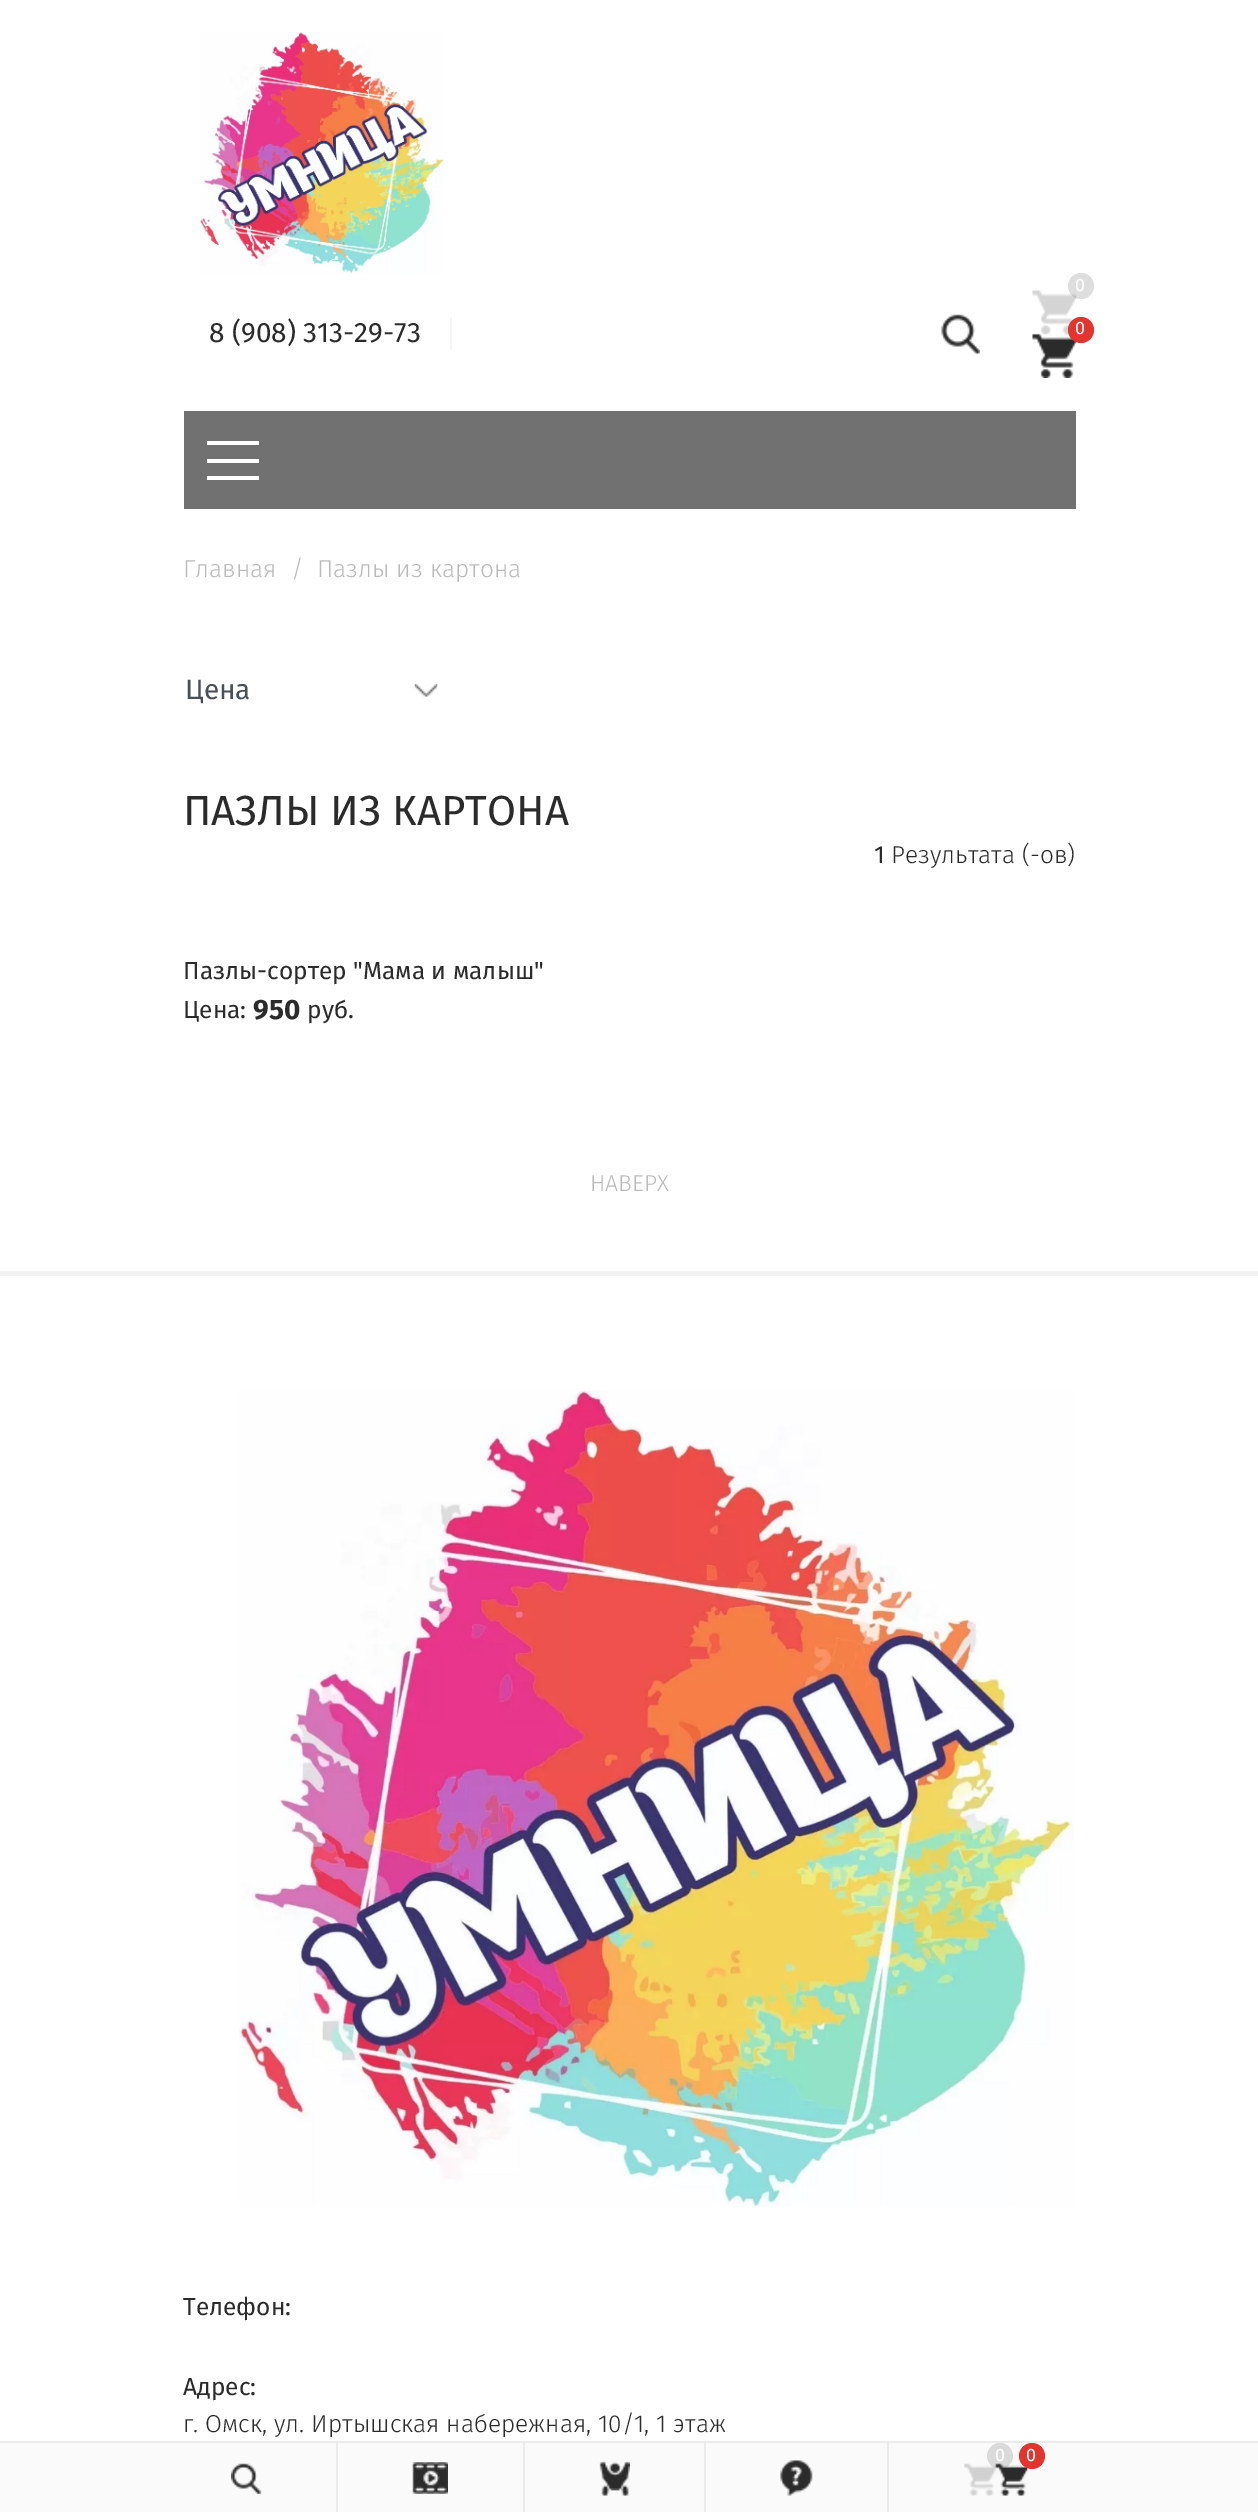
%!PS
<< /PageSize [1258 2512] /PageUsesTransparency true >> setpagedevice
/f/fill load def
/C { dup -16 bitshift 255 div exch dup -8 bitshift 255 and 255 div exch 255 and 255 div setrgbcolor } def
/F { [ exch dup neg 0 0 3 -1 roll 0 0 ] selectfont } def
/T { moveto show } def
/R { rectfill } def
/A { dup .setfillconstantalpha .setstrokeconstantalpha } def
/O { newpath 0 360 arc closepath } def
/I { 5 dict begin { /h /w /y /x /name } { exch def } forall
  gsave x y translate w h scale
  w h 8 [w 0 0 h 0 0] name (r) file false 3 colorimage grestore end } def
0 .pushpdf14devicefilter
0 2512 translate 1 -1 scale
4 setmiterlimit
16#FFFFFF C
0 0 1258 2512 R
(1.rgb) 200 32 244 242 I
/FiraSans-Regular 28 F
16#2B2B2B C
(8 \(908\) 313-29-73) 209 342 T
16#F5F5F5 C
450 317 2 33 R
(2.rgb) 941 314 39 40 I
(3.rgb) 1032 290 45 45 I
0.2 A
16#5A5A5A C
1081 286 13 O f
/FiraSans-Regular 18 F
1 A
16#FFFFFF C
(0) 1075 291 T
(4.rgb) 1032 333 45 45 I
16#E33530 C
1081 330 13 O f
16#FFFFFF C
(0) 1075 334 T
16#717171 C
184 411 892 98 R
16#FFFFFF C
207 441 52 4 R
207 459 52 4 R
207 476 52 4 R
/FiraSans-Light 24.5 F
16#BABABA C
(Главная) 183 577 T
(/) 291 577 T
(Пазлы из картона) 317 577 T
(5.rgb) 414 684 24 13 I
/FiraSans-Regular 28 F
16#495057 C
(Цена) 185 699 T
/FiraSans-Regular 42 F
16#2B2B2B C
(ПАЗЛЫ ИЗ КАРТОНА) 183 825 T
/FiraSans-Regular 24.5 F
(1) 874 863 T
/FiraSans-Light 24.5 F
(Результата \(-ов\)) 891 863 T
/FiraSans-Regular 24.5 F
(Пазлы-сортер "Мама и малыш") 183 979 T
(Цена:) 183 1018 T
/FiraSans-Bold 28 F
(950) 253 1019 T
/FiraSans-Regular 24.5 F
(руб.) 307 1018 T
/FiraSans-Light 23 F
16#BABABA C
(НАВЕРХ) 590 1191 T
16#F2F2F2 C
0 1271 1258 5 R
(6.rgb) 239 1390 835 817 I
/FiraSans-Regular 24.5 F
16#2B2B2B C
(Телефон:) 183 2315 T
(Адрес:) 183 2395 T
/FiraSans-Light 24.5 F
(г. Омск, ул. Иртышская набережная, 10/1, 1 этаж) 183 2432 T
16#FAFAFA C
0 2443 1258 69 R
16#EBEBEB C
0 2441 1258 2 R
336 2443 2 69 R
(7.rgb) 231 2463 31 31 I
523 2443 2 69 R
(8.rgb) 412 2462 36 32 I
704 2443 2 69 R
(9.rgb) 599 2461 31 35 I
887 2443 2 69 R
(10.rgb) 780 2460 33 36 I
(11.rgb) 964 2463 32 33 I
0.2 A
16#5A5A5A C
1000 2456 13 O f
/FiraSans-Regular 18 F
1 A
16#FFFFFF C
(0) 995 2461 T
(12.rgb) 995 2463 33 33 I
16#E33530 C
1032 2456 13 O f
16#FFFFFF C
(0) 1026 2461 T
.poppdf14devicefilter showpage
